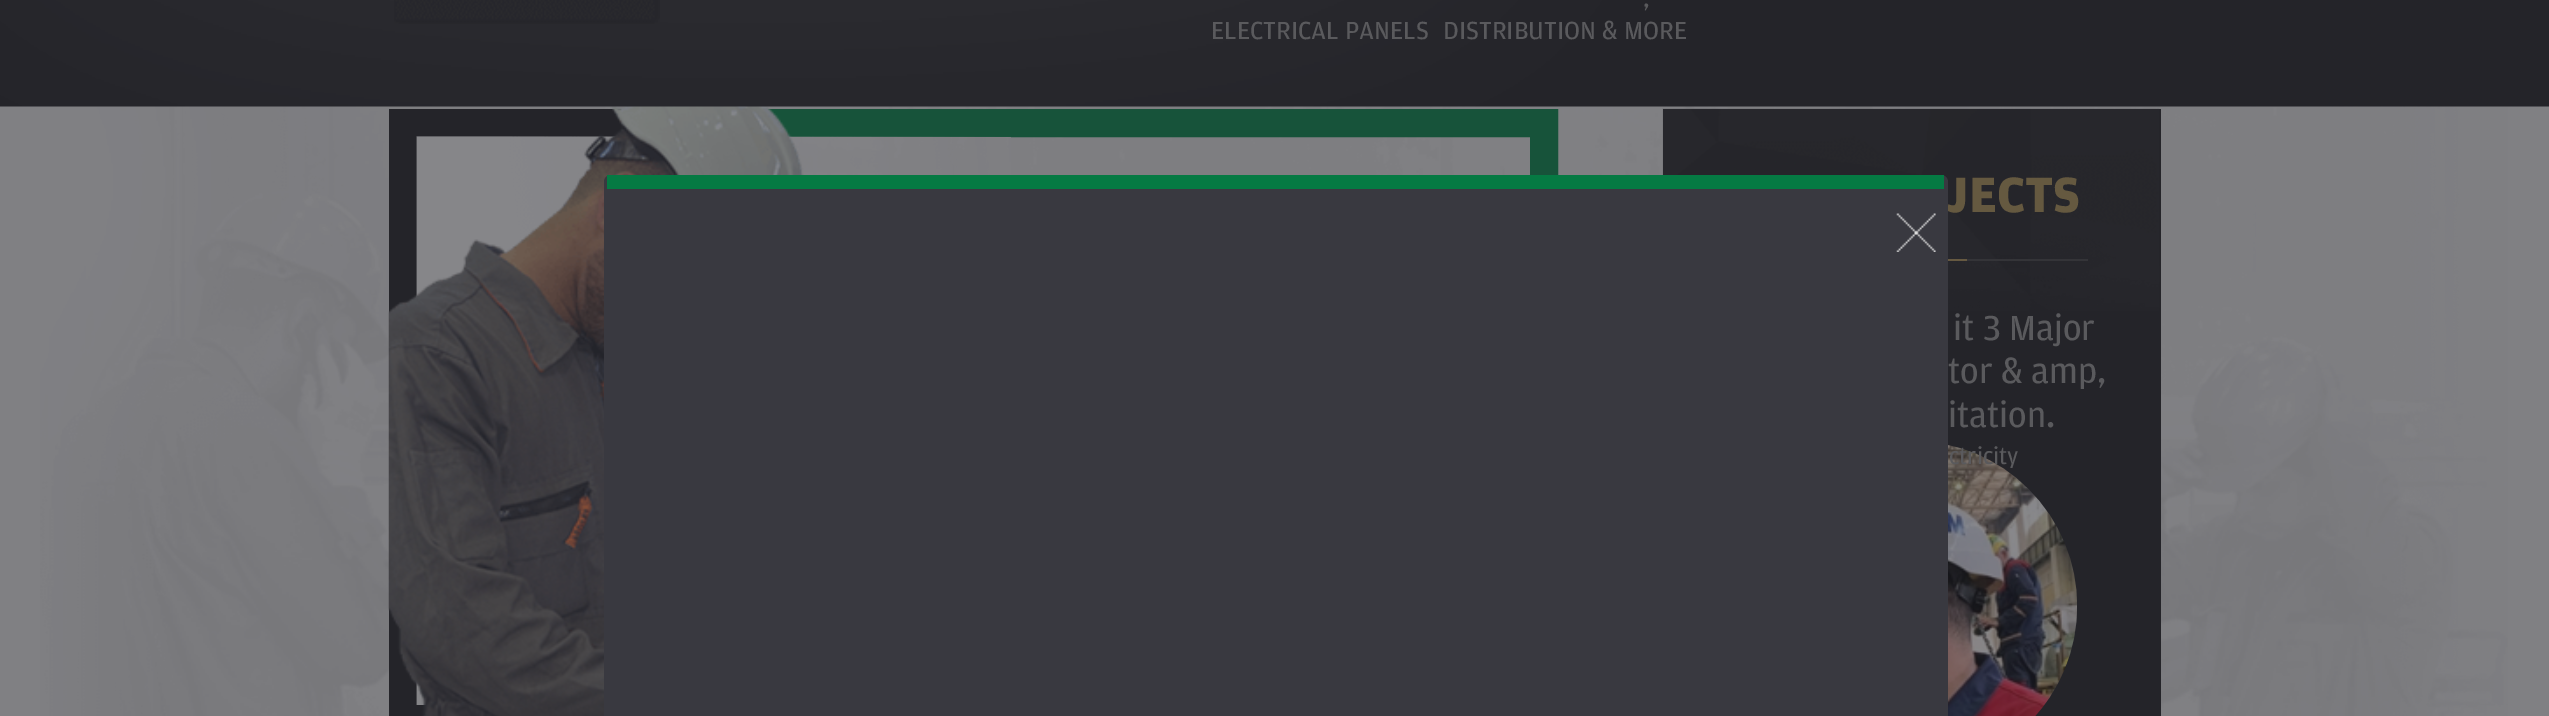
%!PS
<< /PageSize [2549 716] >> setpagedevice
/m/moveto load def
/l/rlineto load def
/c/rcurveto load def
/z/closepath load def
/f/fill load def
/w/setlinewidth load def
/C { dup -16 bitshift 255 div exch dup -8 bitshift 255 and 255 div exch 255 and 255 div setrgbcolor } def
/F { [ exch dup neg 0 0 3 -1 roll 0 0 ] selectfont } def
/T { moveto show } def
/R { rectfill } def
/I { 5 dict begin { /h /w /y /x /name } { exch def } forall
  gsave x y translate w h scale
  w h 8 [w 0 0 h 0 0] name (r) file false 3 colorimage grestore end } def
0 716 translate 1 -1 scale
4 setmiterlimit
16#808083 C
0 0 2549 716 R
(3.rgb) 40 106 2468 610 I
16#17533A C
28 w
403 123 1141 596 rectstroke
16#242429 C
389 109 28 596 R
417 109 209 28 R
(5.rgb) 416 136 595 569 I
389 705 37 11 R
(4.rgb) 388 106 416 610 I
(1.rgb) 0 0 2549 107 I
(2.rgb) 394 0 266 24 I
/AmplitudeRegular-Regular 26.25 F
16#5A5A5D C
(ELECTRICAL PANELS) 1211 39 T
(,) 1643 7 T
(DISTRIBUTION & MORE) 1443 39 T
16#242429 C
1663 109 498 607 R
(6.rgb) 1662 108 498 203 I
/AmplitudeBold-Bold 52.5 F
16#655940 C
(JECTS) 1946 212 T
16#665941 C
1948 259 19 2 R
16#343438 C
1967 259 121 2 R
/AmplitudeRegular-Regular 36.75 F
16#5A5A5D C
(it 3 Major) 1953 340 T
(tor & amp,) 1948 383 T
(itation.) 1948 427 T
(7.rgb) 1948 445 129 271 I
/AmplitudeRegular-Regular 24.5 F
(ctricity) 1949 464 T
16#393940 C
611 175 m 1330 0 l 4 0 7 3 7 7 c 0 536 l -1344 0 l 0 -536 l 0 -4 3 -7 7 -7 c z f
16#057A43 C
607 175 1337 14 R
(8.rgb) 1896 213 40 39 I
showpage
